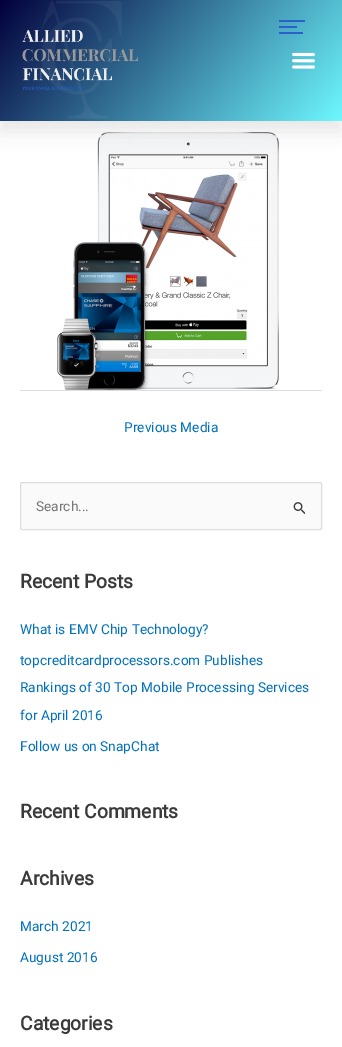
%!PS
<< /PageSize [342 1047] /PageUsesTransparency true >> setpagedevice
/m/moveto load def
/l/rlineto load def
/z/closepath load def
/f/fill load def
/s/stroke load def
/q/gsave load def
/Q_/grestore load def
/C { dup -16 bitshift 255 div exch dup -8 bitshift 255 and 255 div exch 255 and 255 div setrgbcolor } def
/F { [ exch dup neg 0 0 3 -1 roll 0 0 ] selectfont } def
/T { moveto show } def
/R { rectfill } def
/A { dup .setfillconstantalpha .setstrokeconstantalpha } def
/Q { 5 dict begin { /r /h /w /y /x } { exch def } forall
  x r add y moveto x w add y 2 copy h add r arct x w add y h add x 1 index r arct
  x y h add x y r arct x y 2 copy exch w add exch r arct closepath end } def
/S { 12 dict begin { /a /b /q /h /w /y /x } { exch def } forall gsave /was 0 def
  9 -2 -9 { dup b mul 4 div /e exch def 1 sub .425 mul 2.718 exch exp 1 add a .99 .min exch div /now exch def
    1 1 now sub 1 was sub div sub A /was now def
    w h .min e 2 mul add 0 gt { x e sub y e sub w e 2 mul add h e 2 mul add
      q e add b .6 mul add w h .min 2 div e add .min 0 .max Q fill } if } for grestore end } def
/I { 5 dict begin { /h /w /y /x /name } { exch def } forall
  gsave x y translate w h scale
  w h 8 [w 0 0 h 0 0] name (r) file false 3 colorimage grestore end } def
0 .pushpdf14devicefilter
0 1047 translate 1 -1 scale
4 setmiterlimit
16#FFFFFF C
0 0 342 1047 R
(3.rgb) 57 132 222 258 I
16#000000 C
0 10 342 121 0 10 .1 S
q 0 0 m 342 0 l 0 121 l -342 0 l z clip newpath
<< /ShadingType 2 /ColorSpace /DeviceRGB /Coords [41 -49 301 170] /Extend [true true] /Function << /FunctionType 2 /Domain [0 1] /C0 [.008 0 .235] /C1 [.431 .973 1] /N 1 >> >> shfill Q_
16#2861CA C
279 20 26 2 R
279 26 18 2 R
279 32 24 2 R
(1.rgb) 22 1 116 118 I
(2.rgb) 292 52 23 17 I
16#DDDDDD C
20 390 302 1 R
/Roboto-Regular 13.7 F
16#0170B9 C
(Previous Media) 124 432 T
16#FAFAFA C
20.5 482.5 301 47 1.5 Q q f Q_
16#DDDDDD C
s
16#757575 C
(Search...) 36 511 T
(4.rgb) 293 502 12 12 I
/Roboto-Bold 19.25 F
16#3A3A3A C
(Recent Posts) 20 588 T
/Roboto-Regular 13.7 F
16#0170B9 C
(What is EMV Chip Technology?) 20 634 T
(topcreditcardprocessors.com Publishes) 20 665 T
(Rankings of 30 Top Mobile Processing Services) 20 692 T
(for April 2016) 20 720 T
(Follow us on SnapChat) 20 751 T
/Roboto-Bold 19.25 F
16#3A3A3A C
(Recent Comments) 20 818 T
(Archives) 20 885 T
/Roboto-Regular 13.7 F
16#0170B9 C
(March 2021) 20 931 T
(August 2016) 20 962 T
/Roboto-Bold 19.25 F
16#3A3A3A C
(Categories) 20 1030 T
.poppdf14devicefilter showpage
